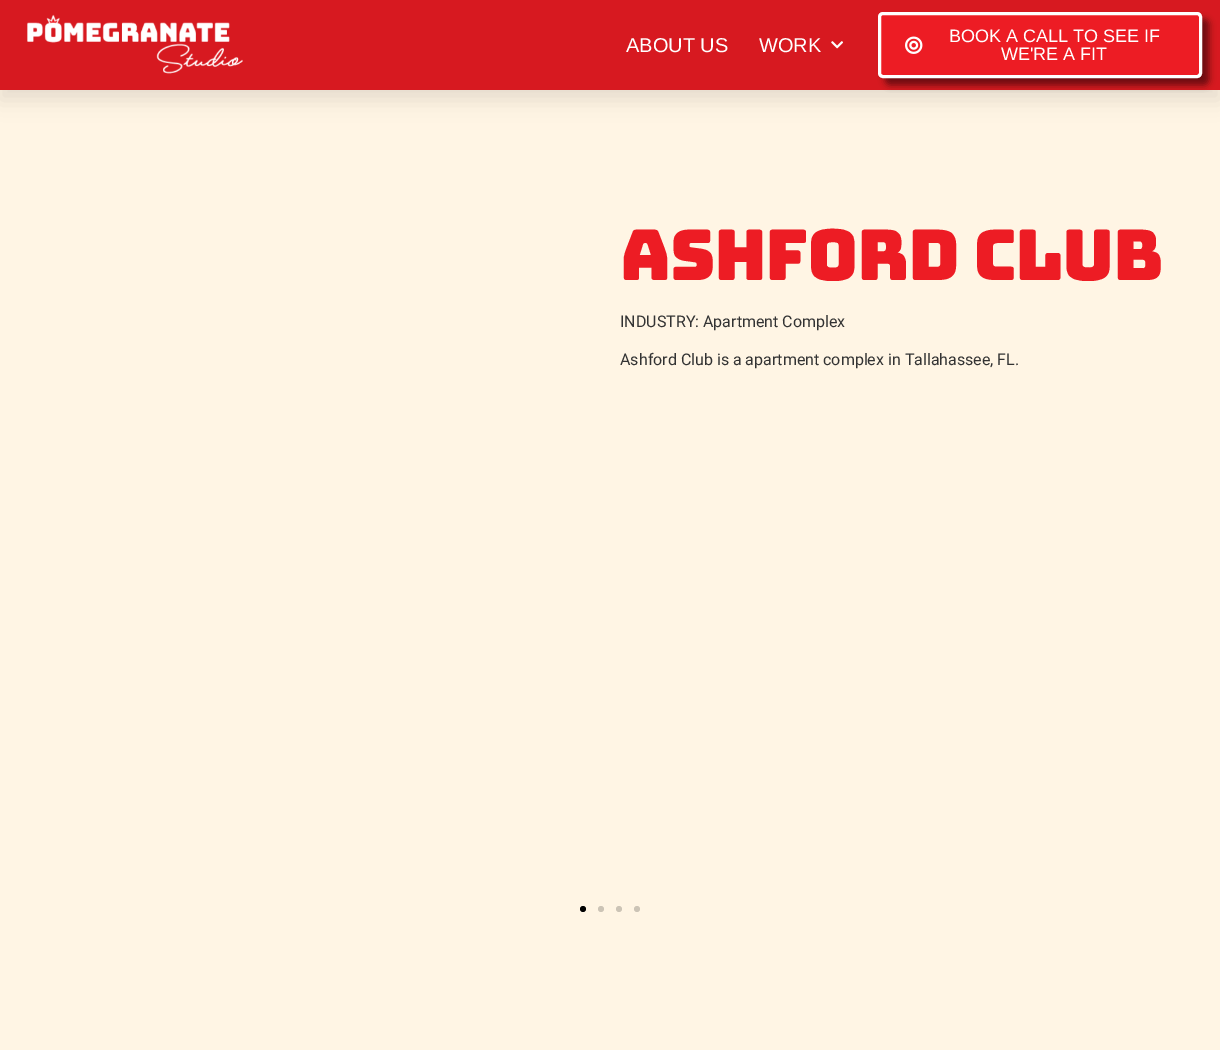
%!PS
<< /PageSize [1220 1050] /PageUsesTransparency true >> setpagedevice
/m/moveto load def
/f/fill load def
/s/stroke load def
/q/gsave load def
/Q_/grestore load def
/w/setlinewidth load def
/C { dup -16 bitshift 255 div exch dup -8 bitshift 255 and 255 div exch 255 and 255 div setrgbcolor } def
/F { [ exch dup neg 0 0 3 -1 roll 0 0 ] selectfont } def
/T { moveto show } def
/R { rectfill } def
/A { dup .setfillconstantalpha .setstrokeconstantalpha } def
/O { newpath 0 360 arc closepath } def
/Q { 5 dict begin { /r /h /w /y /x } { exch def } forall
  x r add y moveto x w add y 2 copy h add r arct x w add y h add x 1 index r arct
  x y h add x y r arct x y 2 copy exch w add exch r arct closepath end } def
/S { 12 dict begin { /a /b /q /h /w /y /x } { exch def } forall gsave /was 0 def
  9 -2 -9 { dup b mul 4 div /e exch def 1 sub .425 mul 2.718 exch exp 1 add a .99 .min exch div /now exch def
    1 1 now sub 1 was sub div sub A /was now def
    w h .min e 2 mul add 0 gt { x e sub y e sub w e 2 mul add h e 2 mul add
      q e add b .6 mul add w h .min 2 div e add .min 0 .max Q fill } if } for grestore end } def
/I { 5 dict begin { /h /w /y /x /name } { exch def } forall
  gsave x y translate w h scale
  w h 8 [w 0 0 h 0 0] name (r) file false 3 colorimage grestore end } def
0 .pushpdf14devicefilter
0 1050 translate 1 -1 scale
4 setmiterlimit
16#FFF5E4 C
0 0 1220 1050 R
16#000000 C
0 10 1220 90 0 10 .1 S
16#D71920 C
0 0 1220 90 R
(1.rgb) 27 14 216 60 I
/LiberationSans-Regular 20 F
16#FFFFFF C
(ABOUT US) 626 52 T
(WORK) 759 52 T
(2.rgb) 831 41 12 8 I
16#000000 C
885 19 324 66 5 3.5 .5 S
16#ED1C24 C
879.5 13.5 321 63 3.5 Q q f Q_
16#FFFFFF C
3 w
s
(3.rgb) 905 36 18 18 I
/LiberationSans-Regular 18 F
(BOOK A CALL TO SEE IF) 949 42 T
(WE'RE A FIT) 1001 60 T
/Bungee-Regular 70 F
16#ED1C24 C
620 280 m -1.5 0 (Ashford Club) ashow
/Roboto-Regular 16 F
16#333333 C
(INDUSTRY: Apartment Complex) 620 327 T
(Ashford Club is a apartment complex in Tallahassee, FL.) 620 365 T
16#000000 C
583 909 3 O f
16#CCC4B6 C
601 909 3 O f
619 909 3 O f
637 909 3 O f
.poppdf14devicefilter showpage
